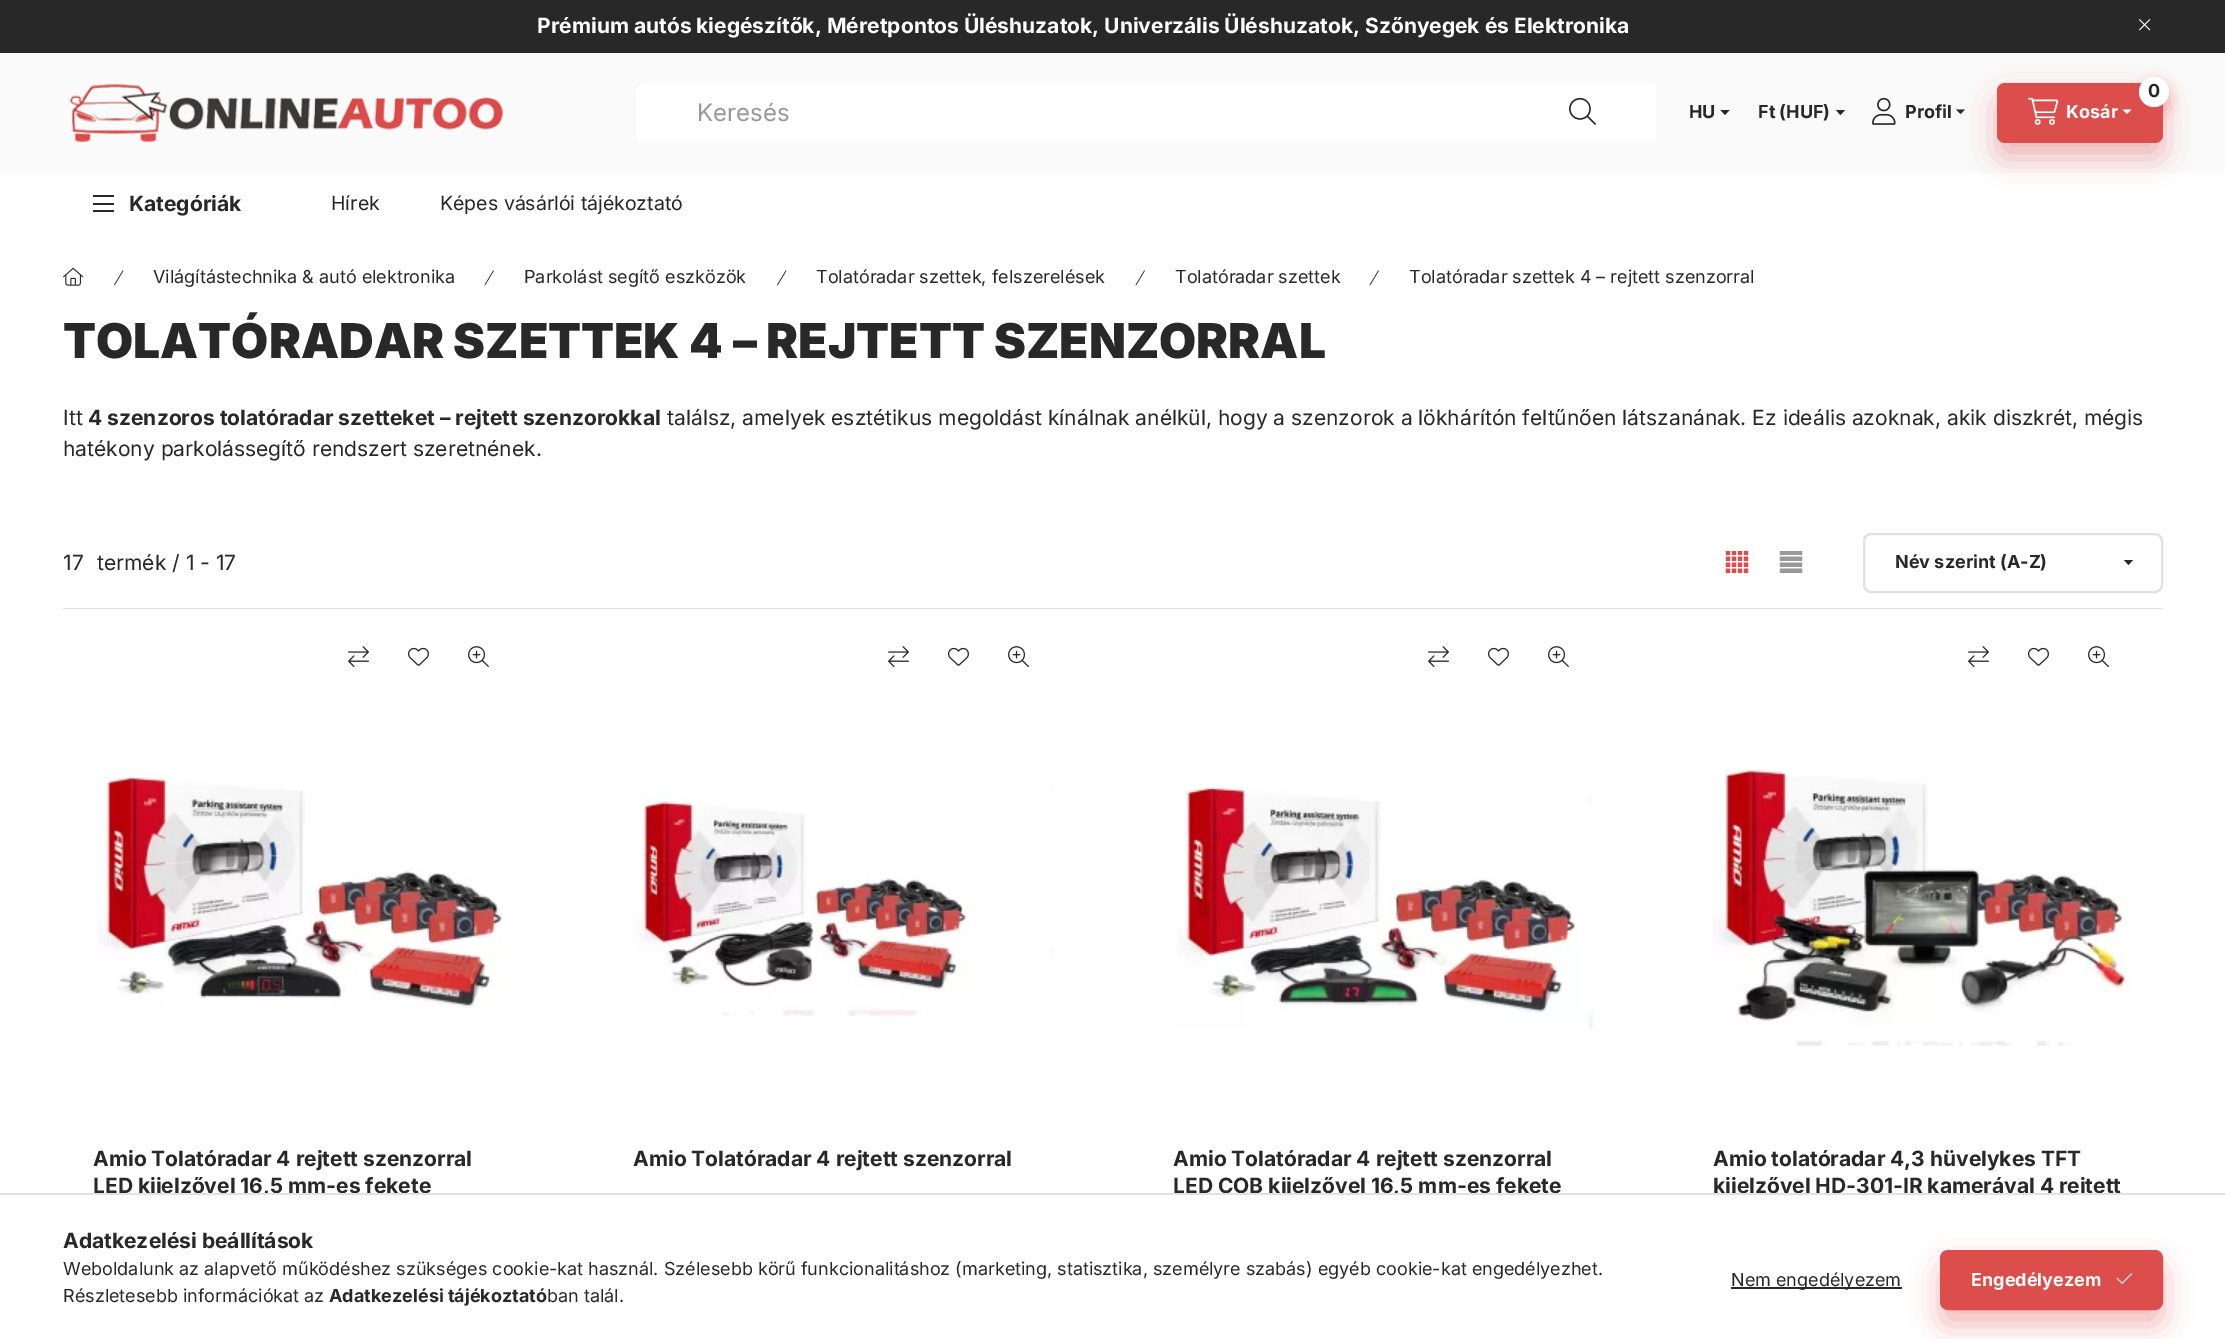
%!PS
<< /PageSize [2225 1339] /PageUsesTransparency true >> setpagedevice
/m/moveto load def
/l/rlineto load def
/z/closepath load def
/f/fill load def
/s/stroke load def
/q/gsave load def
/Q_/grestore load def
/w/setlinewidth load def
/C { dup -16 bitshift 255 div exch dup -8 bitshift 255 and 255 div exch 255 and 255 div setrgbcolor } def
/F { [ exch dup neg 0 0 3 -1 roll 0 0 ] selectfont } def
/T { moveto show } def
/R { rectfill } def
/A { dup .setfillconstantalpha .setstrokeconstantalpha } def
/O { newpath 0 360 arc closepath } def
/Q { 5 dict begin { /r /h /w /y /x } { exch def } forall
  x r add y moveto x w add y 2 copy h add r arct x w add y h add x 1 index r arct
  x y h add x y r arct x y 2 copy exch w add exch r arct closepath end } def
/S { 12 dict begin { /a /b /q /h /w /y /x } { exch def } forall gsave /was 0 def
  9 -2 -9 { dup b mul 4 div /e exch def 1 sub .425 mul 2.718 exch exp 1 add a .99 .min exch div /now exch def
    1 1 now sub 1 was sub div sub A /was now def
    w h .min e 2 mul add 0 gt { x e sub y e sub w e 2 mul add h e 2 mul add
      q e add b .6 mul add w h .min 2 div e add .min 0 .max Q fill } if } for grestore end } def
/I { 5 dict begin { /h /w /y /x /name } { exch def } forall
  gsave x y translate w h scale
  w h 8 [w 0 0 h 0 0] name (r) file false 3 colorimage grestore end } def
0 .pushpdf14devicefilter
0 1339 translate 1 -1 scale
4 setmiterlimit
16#FFFFFF C
0 0 2225 1339 R
16#FAFAFA C
0 53 2225 120 R
16#DC4E4B C
1997 98 166 60 8 15 .4 S
16#282829 C
0 0 2225 53 R
/Inter-Bold 21 F
16#FFFFFF C
(Prémium autós kiegészítők, Méretpontos Üléshuzatok, Univerzális Üléshuzatok, Szőnyegek és Elektronika) 537 33 T
(1.rgb) 2139 19 12 12 I
(2.rgb) 69 83 434 60 I
636 83 1020 60 8 Q f
/Inter-Regular 24 F
16#999999 C
(Keresés) 697 121 T
(3.rgb) 1569 97 27 28 I
/Inter-Bold 18 F
16#282829 C
(HU) 1689 118 T
1720.5 110 m 9 0 l -4.5 5 l z f
(Ft \(HUF\)) 1758 118 T
1836 110 m 9 0 l -4.5 5 l z f
(4.rgb) 1872 97 24 28 I
(Profil) 1905 118 T
1956 109.5 m 9 0 l -4.5 4.5 l z f
16#DC4E4B C
1997 83 166 60 8 Q f
2139 84 30 30 15 7.5 .4 S
16#FFFFFF C
2154 92 15 O f
16#282829 C
(0) 2148 97 T
(5.rgb) 2028 97 31 28 I
16#FFFFFF C
(Kosár) 2066 118 T
2122.5 109.5 m 9 0 l -4.5 4.5 l z f
16#282829 C
93 195 21 2 R
93 203 21 2 R
93 210 21 2 R
/Inter-Bold 21 F
(Kategóriák) 129 211 T
/Inter-Regular 19.5 F
(Hírek) 331 210 T
(Képes vásárlói tájékoztató) 440 210 T
(6.rgb) 63 267 21 19 I
(7.rgb) 114 270 10 16 I
/Inter-Regular 18 F
(Világítástechnika & autó elektronika) 153 283 T
(8.rgb) 484 270 10 16 I
(Parkolást segítő eszközök) 524 283 T
(7.rgb) 777 270 10 16 I
(Tolatóradar szettek, felszerelések) 816 283 T
(8.rgb) 1135 270 10 16 I
(Tolatóradar szettek) 1175 283 T
(8.rgb) 1369 270 10 16 I
(Tolatóradar szettek 4 – rejtett szenzorral) 1409 283 T
/Inter-Black 48 F
(TOLATÓRADAR SZETTEK 4 – REJTETT SZENZORRAL) 63 358 T
/Inter-Regular 21 F
(Itt) 63 425 T
/Inter-Bold 21 F
(4 szenzoros tolatóradar szetteket – rejtett szenzorokkal) 88 425 T
/Inter-Regular 21 F
(találsz, amelyek esztétikus megoldást kínálnak anélkül, hogy a szenzorok a lökhárítón feltűnően látszanának. Ez ideális azoknak, akik diszkrét, mégis) 667 425 T
(hatékony parkolássegítő rendszert szeretnének.) 63 456 T
16#E1E1E1 C
63 608 2100 1 R
16#282829 C
(17) 63 570 T
(termék / 1 - 17) 97 570 T
(9.rgb) 1725 551 24 22 I
(10.rgb) 1779 551 24 22 I
16#E1E1E1 C
2 w
1864 534 298 58 7 Q s
/Inter-Bold 18 F
16#282829 C
(Név szerint \(A-Z\)) 1895 568 T
2124 560 m 9 0 l -4.5 5 l z f
(11.rgb) 348 646 21 22 I
(12.rgb) 408 647 21 19 I
(13.rgb) 468 646 21 22 I
(14.rgb) 97 771 405 237 I
/Inter-Bold 21 F
(Amio Tolatóradar 4 rejtett szenzorral) 93 1166 T
(LED kijelzővel 16,5 mm-es fekete) 93 1193 T
(11.rgb) 888 646 21 22 I
(12.rgb) 948 647 21 19 I
(13.rgb) 1008 646 21 22 I
(15.rgb) 633 785 420 232 I
(Amio Tolatóradar 4 rejtett szenzorral) 633 1166 T
(11.rgb) 1428 646 21 22 I
(12.rgb) 1488 647 21 19 I
(13.rgb) 1548 646 21 22 I
(16.rgb) 1177 783 416 246 I
(Amio Tolatóradar 4 rejtett szenzorral) 1173 1166 T
(LED COB kijelzővel 16,5 mm-es fekete) 1173 1193 T
(11.rgb) 1968 646 21 22 I
(12.rgb) 2028 647 21 19 I
(13.rgb) 2088 646 21 22 I
(17.rgb) 1713 769 420 278 I
(Amio tolatóradar 4,3 hüvelykes TFT) 1713 1166 T
(kijelzővel HD-301-IR kamerával 4 rejtett) 1713 1193 T
16#FFFFFF C
155 1195 1929 3 R
16#E1E1E1 C
0 1193 2225 2 R
16#282829 C
(Adatkezelési beállítások) 63 1248 T
/Inter-Regular 18 F
(Weboldalunk az alapvető működéshez szükséges cookie-kat használ. Szélesebb körű funkcionalitáshoz \(marketing, statisztika, személyre szabás\) egyéb cookie-kat engedélyezhet.) 63 1275 T
(Részletesebb információkat az) 63 1302 T
/Inter-Bold 18 F
(Adatkezelési tájékoztató) 329 1302 T
/Inter-Regular 18 F
(ban talál.) 547 1302 T
1731 1287 171 2 R
(Nem engedélyezem) 1731 1286 T
16#DC4E4B C
1940 1265 223 60 8 15 .4 S
1941 1251 221 58 7 Q q f Q_
s
/Inter-Bold 18 F
16#FFFFFF C
(Engedélyezem) 1971 1286 T
(18.rgb) 2116 1273 17 11 I
.poppdf14devicefilter showpage
